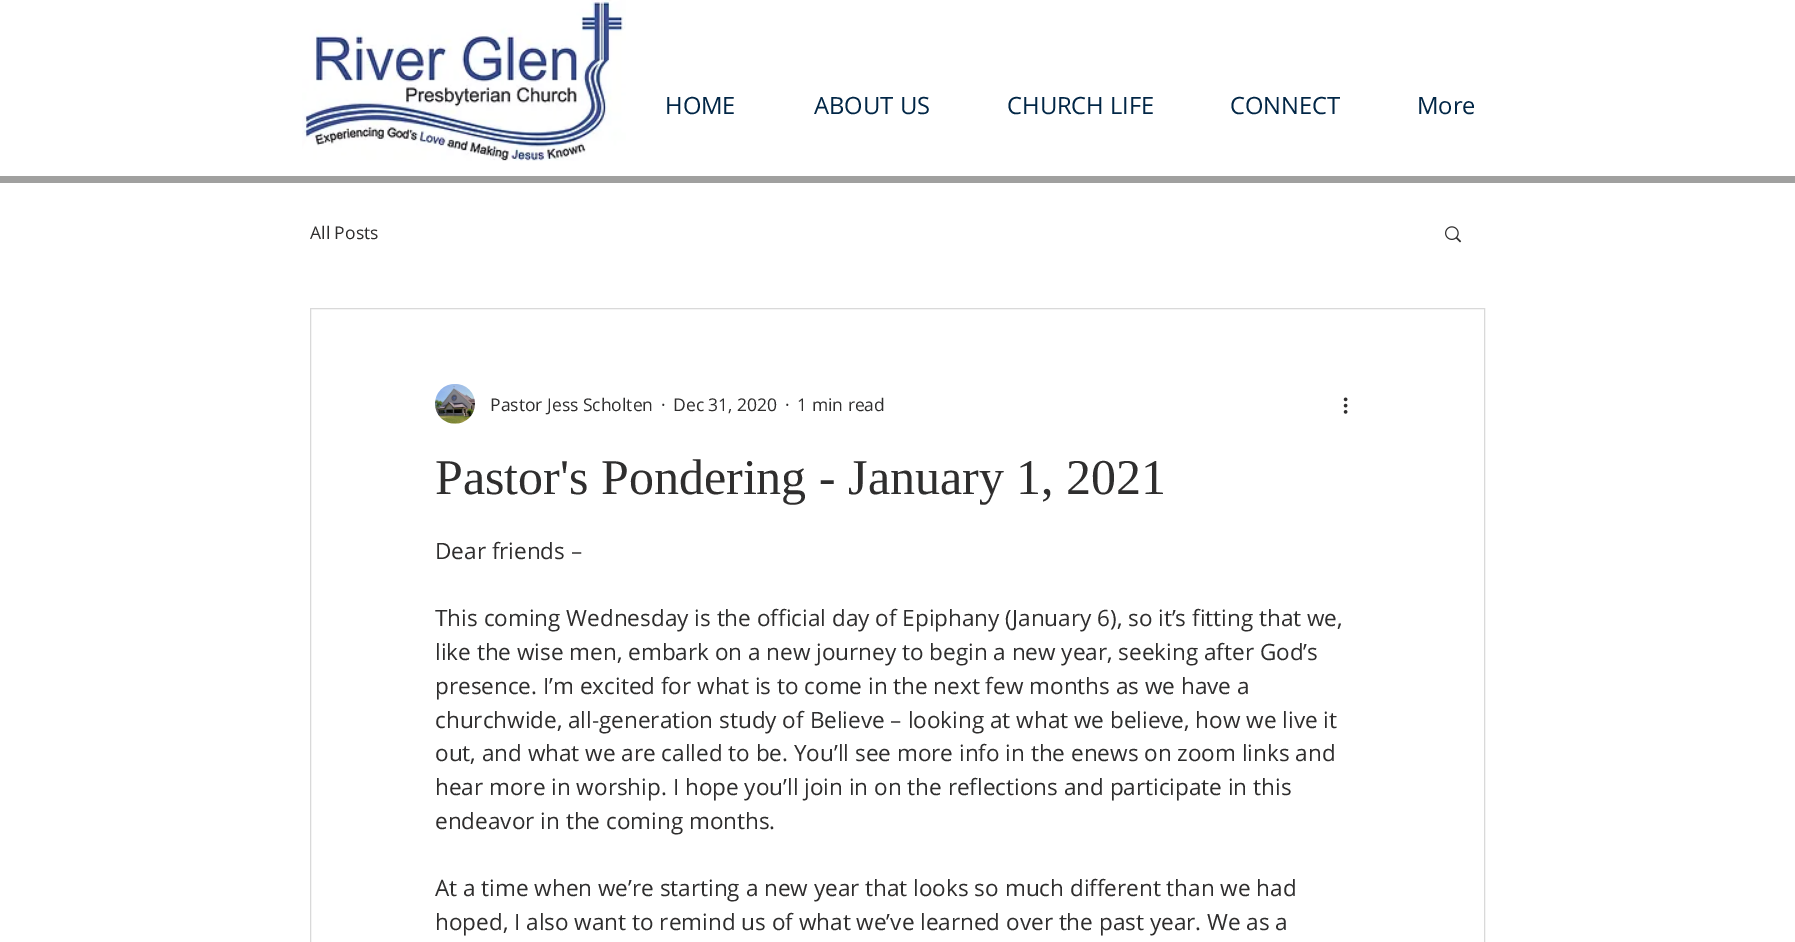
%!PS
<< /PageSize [1795 942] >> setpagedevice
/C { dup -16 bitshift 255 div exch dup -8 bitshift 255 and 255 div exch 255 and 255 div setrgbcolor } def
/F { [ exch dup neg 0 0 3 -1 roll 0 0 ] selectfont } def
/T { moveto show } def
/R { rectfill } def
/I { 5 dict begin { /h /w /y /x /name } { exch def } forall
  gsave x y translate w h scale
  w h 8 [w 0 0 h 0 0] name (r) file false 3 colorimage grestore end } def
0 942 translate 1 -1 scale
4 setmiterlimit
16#FFFFFF C
0 0 1795 942 R
(1.rgb) 302 0 324 161 I
/OpenSans-Regular 23.75 F
16#012646 C
(HOME) 665 114 T
(ABOUT US) 814 114 T
(CHURCH LIFE) 1007 114 T
(CONNECT) 1230 114 T
(More) 1417 114 T
16#A0A09F C
0 176 1795 7 R
/OpenSans-Regular 17.5 F
16#2F2E2E C
(All Posts) 310 239 T
(2.rgb) 1445 226 17 17 I
16#D9D9D9 C
310.5 308.5 1174 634 rectstroke
(3.rgb) 435 384 40 40 I
16#2F2E2E C
(Pastor Jess Scholten) 490 411 T
(·) 661 411 T
(Dec 31, 2020) 673 411 T
(·) 785 411 T
(1 min read) 797 411 T
(4.rgb) 1343 397 5 17 I
/LiberationSerif-Regular 50 F
(Pastor's Pondering - January 1, 2021) 435 494 T
/OpenSans-Regular 22.5 F
(Dear friends –) 435 559 T
(This coming Wednesday is the official day of Epiphany \(January 6\), so it’s fitting that we,) 435 626 T
(like the wise men, embark on a new journey to begin a new year, seeking after God’s) 435 660 T
(presence. I’m excited for what is to come in the next few months as we have a) 435 694 T
(churchwide, all-generation study of Believe – looking at what we believe, how we live it) 435 728 T
(out, and what we are called to be. You’ll see more info in the enews on zoom links and) 435 761 T
(hear more in worship. I hope you’ll join in on the reflections and participate in this) 435 795 T
(endeavor in the coming months.) 435 829 T
(At a time when we’re starting a new year that looks so much different than we had) 435 896 T
(hoped, I also want to remind us of what we’ve learned over the past year. We as a) 435 930 T
showpage
